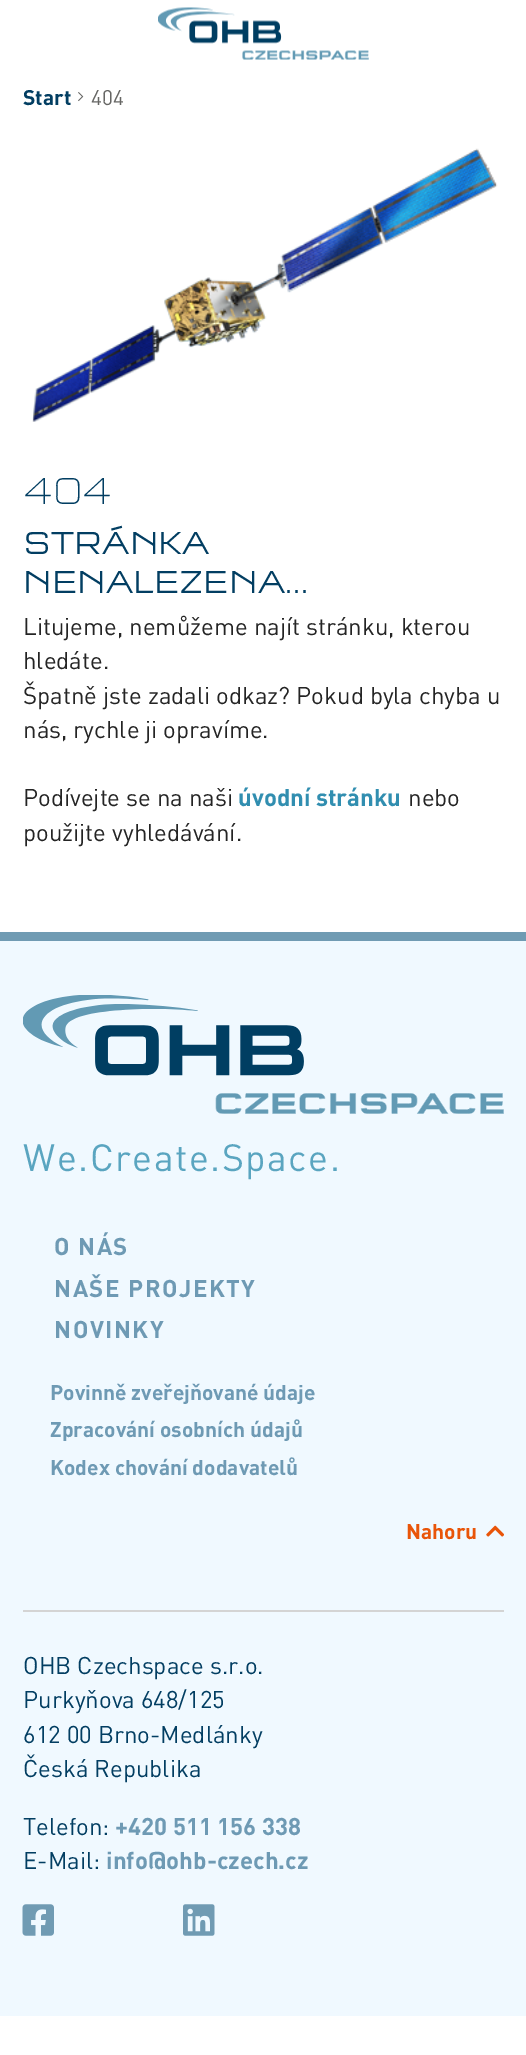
%!PS
<< /PageSize [526 2055] >> setpagedevice
/m/moveto load def
/C { dup -16 bitshift 255 div exch dup -8 bitshift 255 and 255 div exch 255 and 255 div setrgbcolor } def
/F { [ exch dup neg 0 0 3 -1 roll 0 0 ] selectfont } def
/T { moveto show } def
/R { rectfill } def
/I { 5 dict begin { /h /w /y /x /name } { exch def } forall
  gsave x y translate w h scale
  w h 8 [w 0 0 h 0 0] name (r) file false 3 colorimage grestore end } def
0 2055 translate 1 -1 scale
4 setmiterlimit
16#FFFFFF C
0 0 526 2055 R
(1.rgb) 158 7 211 53 I
/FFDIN-Regular 21 F
16#023E62 C
(Start) 23 105 T
(2.rgb) 78 92 6 10 I
/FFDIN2-Regular 21 F
16#666664 C
(404) 91 105 T
(3.rgb) 32 148 466 274 I
/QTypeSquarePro-Light 39 F
16#023E62 C
(404) 23 504 T
/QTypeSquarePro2-Light 33 F
(STRÁNKA) 23 554 T
(NENALEZENA...) 23 593 T
/FFDIN2-Regular 24 F
16#242424 C
(Litujeme, nemůžeme najít stránku, kterou) 23 635 T
(hledáte.) 23 669 T
(Špatně jste zadali odkaz? Pokud byla chyba u) 23 704 T
(nás, rychle ji opravíme.) 23 738 T
(Podívejte se na naši) 23 806 T
/FFDIN-Regular 24 F
16#318EB0 C
(úvodní stránku) 238 806 T
/FFDIN2-Regular 24 F
16#242424 C
(nebo) 408 806 T
(použijte vyhledávání.) 23 841 T
16#F0F9FF C
0 941 526 1075 R
16#709BB3 C
0 932 526 9 R
(4.rgb) 23 995 481 119 I
/FFDIN2-Regular 37.5 F
16#5AA5C0 C
23 1171 m 1.5 0 (We.Create.Space.) ashow
/FFDIN-Regular 24 F
16#6E9AB4 C
54 1255 m 1.5 0 (O NÁS) ashow
54 1297 m 1.5 0 (NAŠE PROJEKTY) ashow
54 1338 m 1.5 0 (NOVINKY) ashow
/FFDIN-Regular 21 F
(Povinně zveřejňované údaje) 50 1400 T
(Zpracování osobních údajů) 50 1437 T
(Kodex chování dodavatelů) 50 1475 T
16#E95509 C
(Nahoru) 406 1539 T
(5.rgb) 486 1525 18 12 I
16#D4D4D4 C
23 1610 481 2 R
/FFDIN2-Regular 24 F
16#023E62 C
(OHB Czechspace s.r.o.) 23 1674 T
(Purkyňova 648/125) 23 1708 T
(612 00 Brno-Medlánky) 23 1743 T
(Česká Republika) 23 1777 T
(Telefon:) 23 1835 T
/FFDIN-Regular 24 F
16#6E9AB4 C
(+420 511 156 338) 115 1835 T
/FFDIN2-Regular 24 F
16#023E62 C
(E-Mail:) 23 1869 T
/FFDIN-Regular 24 F
16#6E9AB4 C
(info@ohb-czech.cz) 106 1869 T
(6.rgb) 22 1904 32 32 I
(7.rgb) 183 1904 32 32 I
showpage
